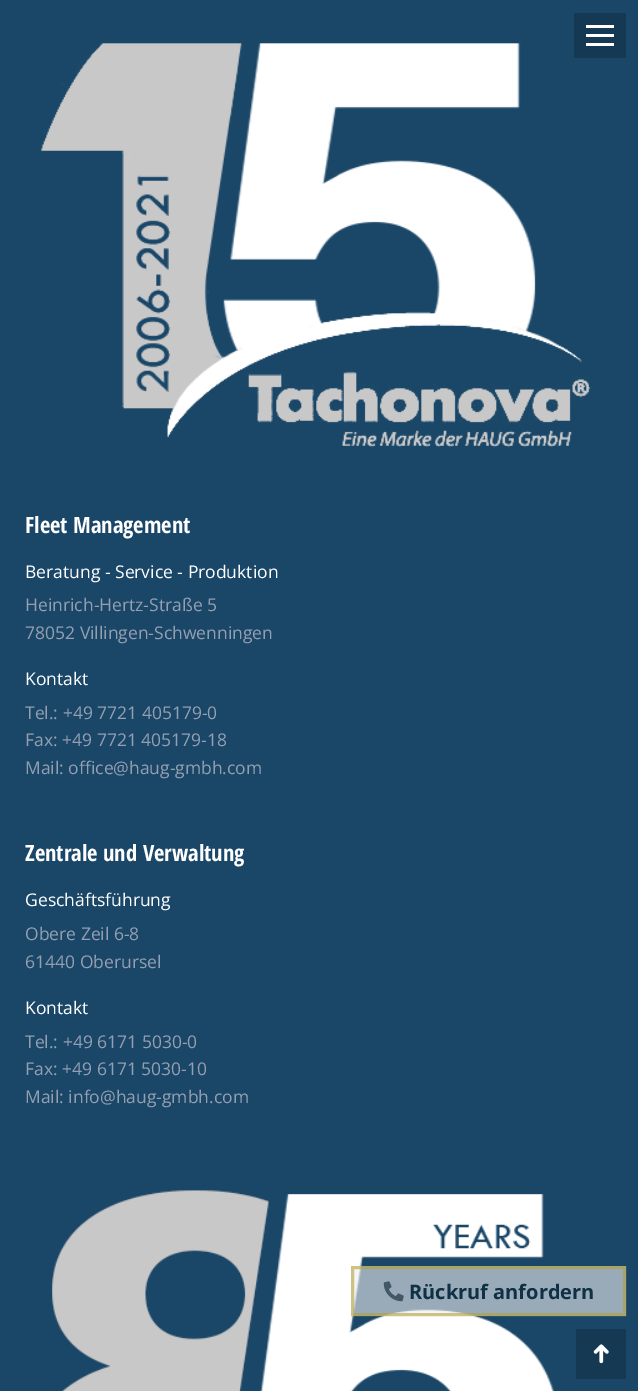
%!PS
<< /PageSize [638 1391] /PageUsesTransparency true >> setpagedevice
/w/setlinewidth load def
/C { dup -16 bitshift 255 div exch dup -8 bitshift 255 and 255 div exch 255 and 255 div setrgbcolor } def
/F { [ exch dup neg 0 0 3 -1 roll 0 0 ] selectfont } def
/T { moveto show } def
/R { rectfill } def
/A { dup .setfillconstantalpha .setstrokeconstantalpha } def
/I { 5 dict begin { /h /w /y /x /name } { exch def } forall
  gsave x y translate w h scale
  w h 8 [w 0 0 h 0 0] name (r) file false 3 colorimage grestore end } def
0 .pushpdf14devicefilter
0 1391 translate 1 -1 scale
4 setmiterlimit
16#1A4768 C
0 0 638 1391 R
(1.rgb) 41 43 550 405 I
16#153953 C
574 13 52 45 R
16#FFFFFF C
586 25 28 3 R
586 34 28 3 R
586 43 28 3 R
/OpenSansCondensed-Bold 22.5 F
(Fleet Management) 25 533 T
/OpenSans-Regular 17.5 F
(Beratung - Service - Produktion) 25 578 T
16#949FB2 C
(Heinrich-Hertz-Straße 5) 25 611 T
(78052 Villingen-Schwenningen) 25 639 T
16#FFFFFF C
(Kontakt) 25 685 T
16#949FB2 C
(Tel.: +49 7721 405179-0) 25 719 T
(Fax: +49 7721 405179-18) 25 746 T
(Mail: office@haug-gmbh.com) 25 774 T
/OpenSansCondensed-Bold 22.5 F
16#FFFFFF C
(Zentrale und Verwaltung) 25 861 T
/OpenSans-Regular 17.5 F
(Geschäftsführung) 25 906 T
16#949FB2 C
(Obere Zeil 6-8) 25 940 T
(61440 Oberursel) 25 968 T
16#FFFFFF C
(Kontakt) 25 1014 T
16#949FB2 C
(Tel.: +49 6171 5030-0) 25 1048 T
(Fax: +49 6171 5030-10) 25 1075 T
(Mail: info@haug-gmbh.com) 25 1103 T
(2.rgb) 52 1190 502 201 I
0.6 A
16#EEEEEE C
351 1266 275 50 R
16#B49F39 C
3 w
352.5 1267.5 272 47 rectstroke
1 A
(3.rgb) 383 1281 21 21 I
/OpenSans-Bold 20 F
16#103046 C
(Rückruf anfordern) 409 1299 T
16#153953 C
576 1329 50 50 R
(4.rgb) 593 1344 16 20 I
.poppdf14devicefilter showpage
